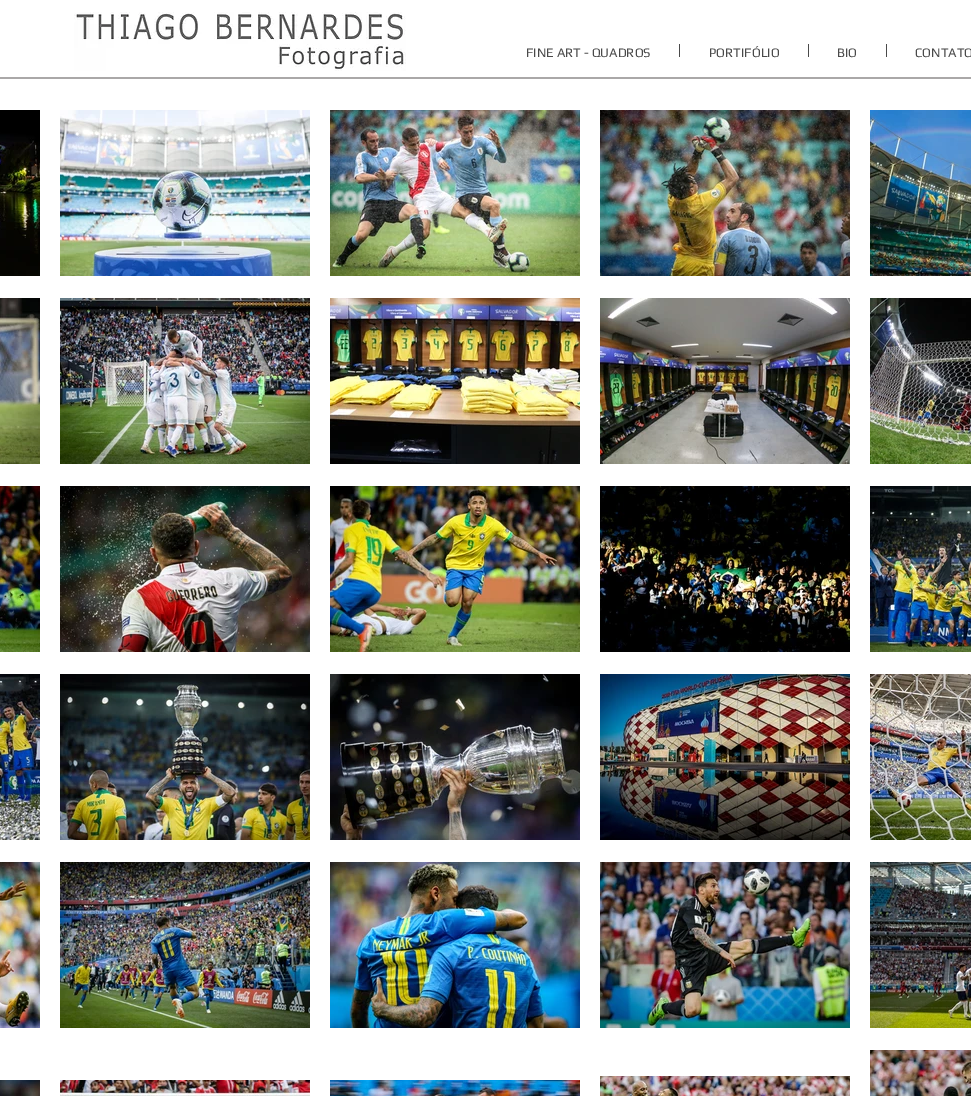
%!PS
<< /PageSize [971 1096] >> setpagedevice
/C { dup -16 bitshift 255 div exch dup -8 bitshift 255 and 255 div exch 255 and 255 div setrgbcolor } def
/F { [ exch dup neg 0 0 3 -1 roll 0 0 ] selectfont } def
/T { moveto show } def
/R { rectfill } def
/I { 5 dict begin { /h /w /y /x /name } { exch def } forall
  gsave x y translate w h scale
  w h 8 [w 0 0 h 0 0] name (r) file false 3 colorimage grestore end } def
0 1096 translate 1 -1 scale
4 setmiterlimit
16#FFFFFF C
0 0 971 1096 R
(1.rgb) 74 12 332 59 I
/Play-Regular 13 F
16#4A4A4A C
(FINE ART - QUADROS) 526 57 T
679 44 1 13 R
(PORTIFÓLIO) 709 57 T
808 44 1 13 R
(BIO) 837 57 T
886 44 1 13 R
(CONTATO) 915 57 T
16#AAA8A8 C
0 77 971 2 R
(2.rgb) 0 110 40 166 I
(3.rgb) 60 110 250 166 I
(4.rgb) 330 110 250 166 I
(5.rgb) 600 110 250 166 I
(6.rgb) 870 110 101 166 I
(7.rgb) 0 298 40 166 I
(8.rgb) 60 298 250 166 I
(9.rgb) 330 298 250 166 I
(10.rgb) 600 298 250 166 I
(11.rgb) 870 298 101 166 I
(12.rgb) 0 486 40 166 I
(13.rgb) 60 486 250 166 I
(14.rgb) 330 486 250 166 I
(15.rgb) 600 486 250 166 I
(16.rgb) 870 486 101 166 I
(17.rgb) 0 674 40 166 I
(18.rgb) 60 674 250 166 I
(19.rgb) 330 674 250 166 I
(20.rgb) 600 674 250 166 I
(21.rgb) 870 674 101 166 I
(22.rgb) 0 862 40 166 I
(23.rgb) 60 862 250 166 I
(24.rgb) 330 862 250 166 I
(25.rgb) 600 862 250 166 I
(26.rgb) 870 862 101 166 I
(27.rgb) 0 1080 40 16 I
(28.rgb) 60 1080 250 16 I
(29.rgb) 330 1080 250 16 I
(30.rgb) 600 1076 250 20 I
(31.rgb) 870 1050 101 46 I
showpage
